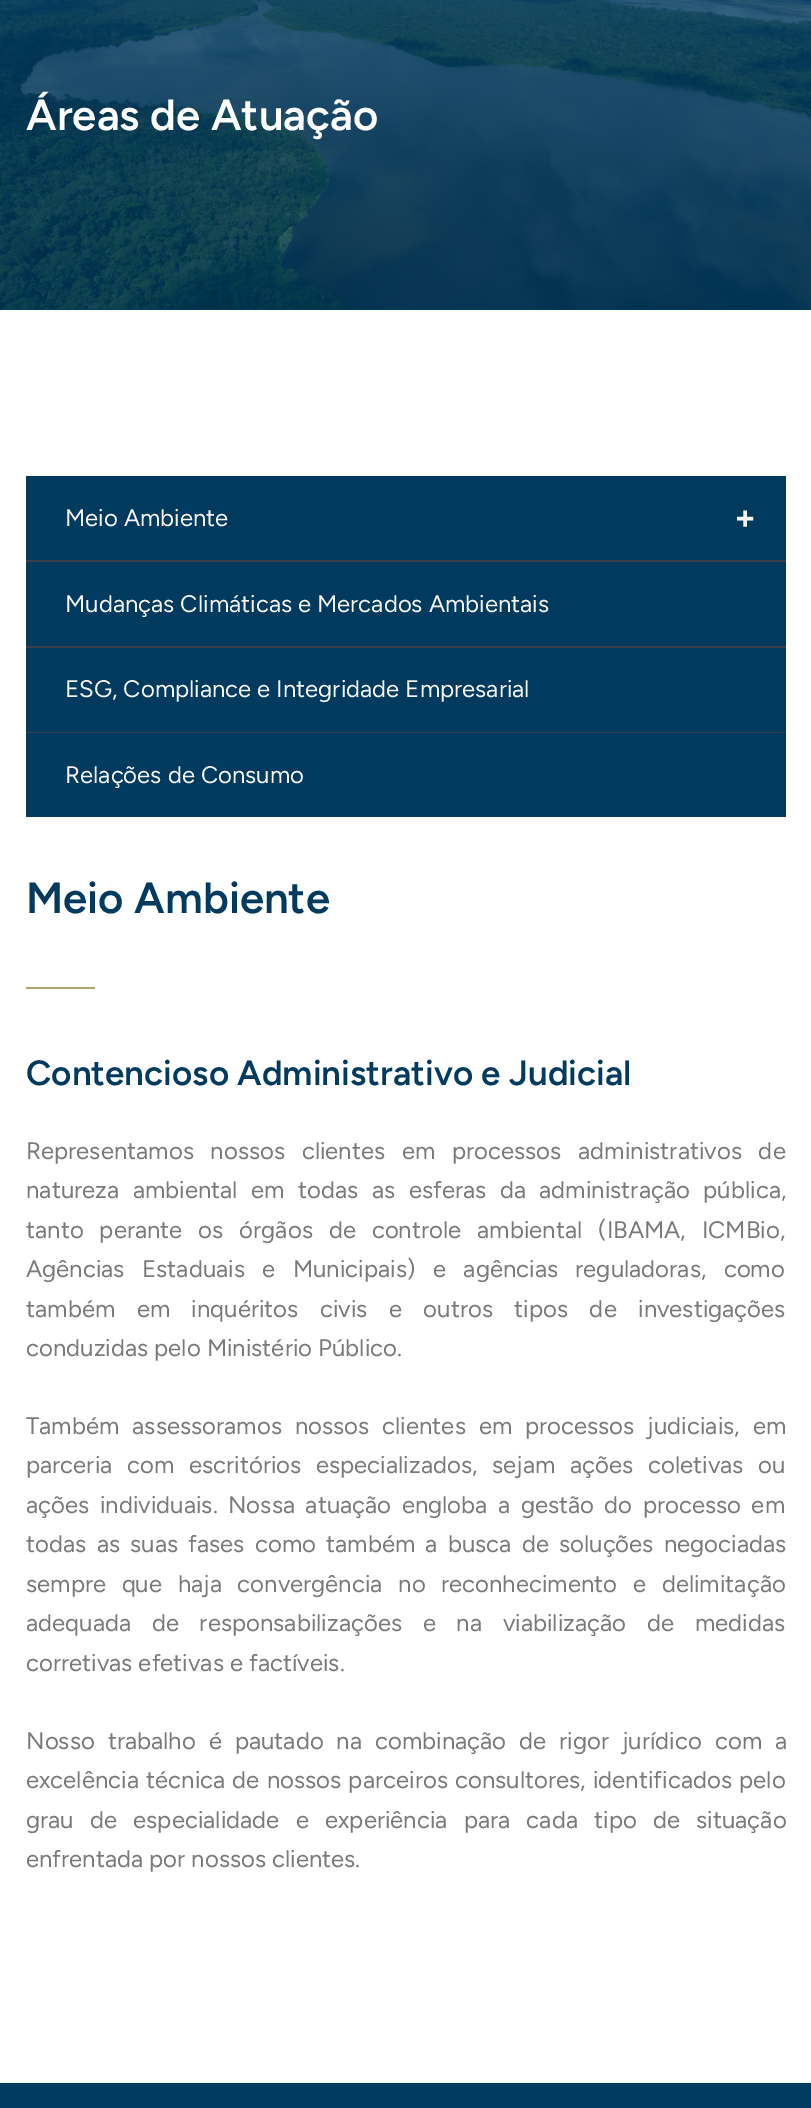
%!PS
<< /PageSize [811 2108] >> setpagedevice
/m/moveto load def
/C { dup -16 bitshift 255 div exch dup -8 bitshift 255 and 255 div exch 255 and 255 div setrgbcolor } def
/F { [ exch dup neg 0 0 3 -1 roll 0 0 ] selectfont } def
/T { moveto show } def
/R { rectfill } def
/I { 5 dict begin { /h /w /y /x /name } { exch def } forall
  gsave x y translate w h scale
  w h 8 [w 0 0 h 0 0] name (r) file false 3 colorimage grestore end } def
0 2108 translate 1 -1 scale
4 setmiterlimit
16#003C61 C
0 0 811 2108 R
(1.rgb) 0 0 811 310 I
/Figtree-SemiBold 43.75 F
16#FFFFFF C
(Áreas de Atuação) 26 130 T
0 310 811 1773 R
16#003A5F C
26 476 760 84 R
16#383F4A C
26 560 760 2 R
/Figtree-Regular 23.95 F
16#F5F5F5 C
(Meio Ambiente) 65 526 T
/Figtree-Bold 35 F
(+) 734 529 T
16#003A5F C
26 562 760 84 R
16#383F4A C
26 646 760 2 R
/Figtree-Regular 23.95 F
16#F5F5F5 C
(Mudanças Climáticas e Mercados Ambientais) 65 612 T
16#003A5F C
26 648 760 84 R
16#383F4A C
26 732 760 1 R
16#F5F5F5 C
(ESG, Compliance e Integridade Empresarial) 65 697 T
16#003A5F C
26 733 760 84 R
16#F5F5F5 C
(Relações de Consumo) 65 783 T
/Figtree-SemiBold 43.75 F
16#003A5F C
(Meio Ambiente) 26 913 T
16#B2A470 C
26 987 69 2 R
/Figtree-SemiBold 35 F
16#003A5F C
(Contencioso Administrativo e Judicial) 26 1085 T
/Figtree-Regular 23.95 F
16#7A7A7A C
26 1159 m 10.75 0 32 (Representamos nossos clientes em processos administrativos de) widthshow
26 1198 m 7.5 0 32 (natureza ambiental em todas as esferas da administração pública,) widthshow
26 1238 m 10 0 32 (tanto perante os órgãos de controle ambiental \(IBAMA, ICMBio,) widthshow
26 1277 m 11.5 0 32 (Agências Estaduais e Municipais\) e agências reguladoras, como) widthshow
26 1317 m 15.5 0 32 (também em inquéritos civis e outros tipos de investigações) widthshow
(conduzidas pelo Ministério Público.) 26 1356 T
26 1434 m 7 0 32 (Também assessoramos nossos clientes em processos judiciais, em) widthshow
26 1473 m 8.75 0 32 (parceria com escritórios especializados, sejam ações coletivas ou) widthshow
26 1513 m 4.5 0 32 (ações individuais. Nossa atuação engloba a gestão do processo em) widthshow
26 1552 m 4.25 0 32 (todas as suas fases como também a busca de soluções negociadas) widthshow
26 1592 m 9.75 0 32 (sempre que haja convergência no reconhecimento e delimitação) widthshow
26 1631 m 14.75 0 32 (adequada de responsabilizações e na viabilização de medidas) widthshow
(corretivas efetivas e factíveis.) 26 1671 T
26 1749 m 7 0 32 (Nosso trabalho é pautado na combinação de rigor jurídico com a) widthshow
26 1788 m 1.25 0 32 (excelência técnica de nossos parceiros consultores, identificados pelo) widthshow
26 1828 m 10.25 0 32 (grau de especialidade e experiência para cada tipo de situação) widthshow
(enfrentada por nossos clientes.) 26 1867 T
showpage
